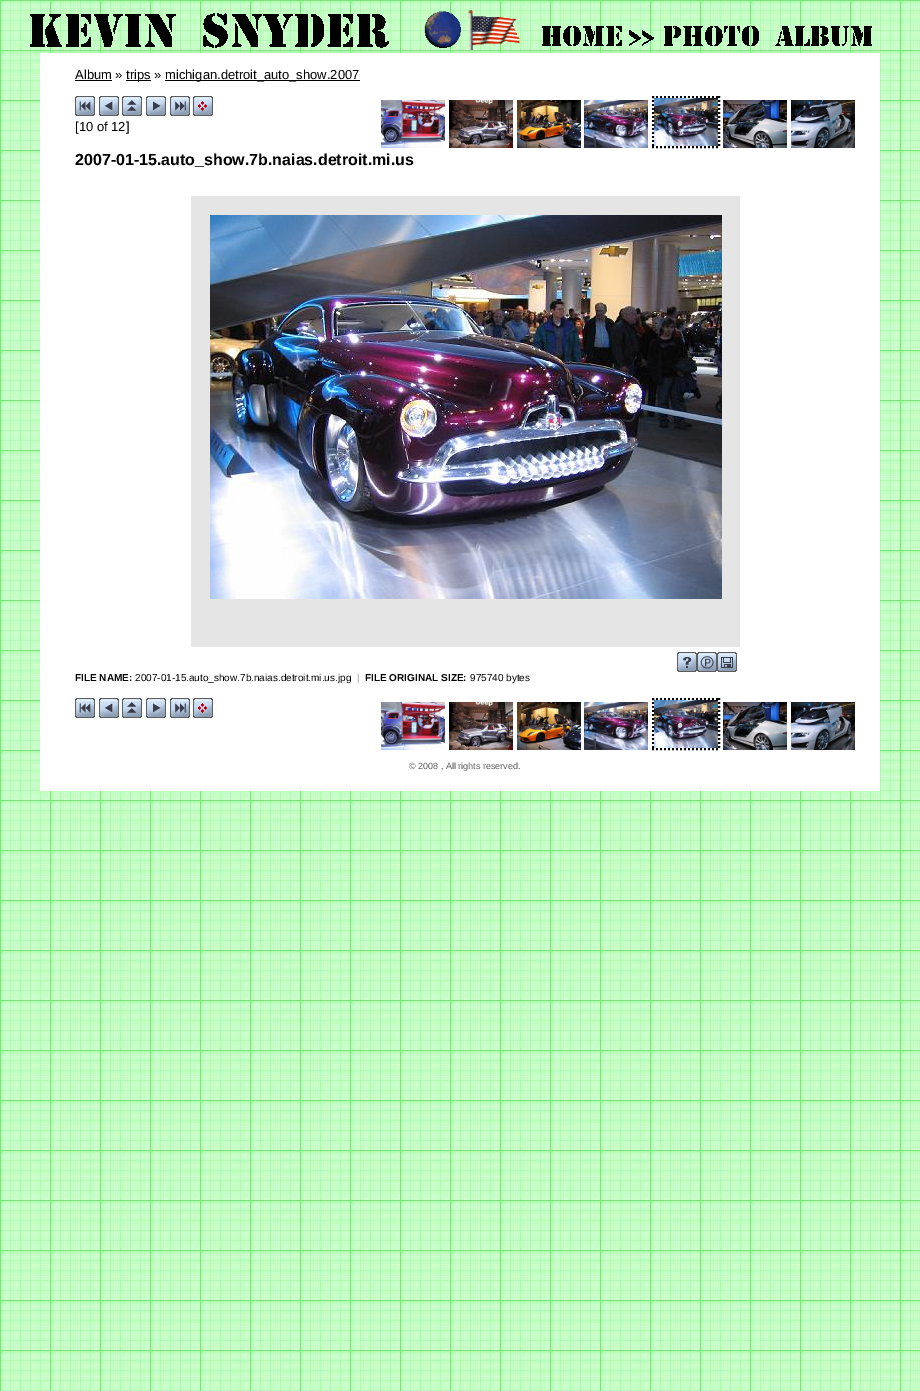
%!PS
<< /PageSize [920 1391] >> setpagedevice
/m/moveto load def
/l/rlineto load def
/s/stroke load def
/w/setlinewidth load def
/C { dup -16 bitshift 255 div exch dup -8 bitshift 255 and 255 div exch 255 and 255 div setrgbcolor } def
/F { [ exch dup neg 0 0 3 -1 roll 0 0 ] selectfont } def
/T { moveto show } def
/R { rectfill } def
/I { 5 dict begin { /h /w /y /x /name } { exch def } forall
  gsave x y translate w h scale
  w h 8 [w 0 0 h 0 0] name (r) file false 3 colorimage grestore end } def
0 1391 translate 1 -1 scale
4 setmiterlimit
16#FFFFFF C
0 0 920 1391 R
(1.rgb) 0 0 920 1391 I
(2.rgb) 30 13 359 35 I
(3.rgb) 424 11 37 37 I
(4.rgb) 468 10 52 40 I
(5.rgb) 542 26 80 20 I
(6.rgb) 629 30 25 16 I
(7.rgb) 664 26 208 20 I
40 53 840 738 R
/LiberationSans-Regular 13 F
16#000000 C
(Album ») 75 79 T
75 80 37 1 R
126 80 25 1 R
(trips ») 126 79 T
165 80 195 1 R
(michigan.detroit_auto_show.2007) 165 79 T
(8.rgb) 75 96 20 20 I
(9.rgb) 99 96 20 20 I
(10.rgb) 122 96 20 20 I
(11.rgb) 146 96 20 20 I
(12.rgb) 170 96 20 20 I
(13.rgb) 193 96 20 20 I
2 w
[2 2] 0 setdash
652 97 m 68 0 l s
(14.rgb) 381 100 64 48 I
(15.rgb) 449 100 64 48 I
(16.rgb) 517 100 64 48 I
(17.rgb) 584 100 64 48 I
653 96 m 0 52 l s
(18.rgb) 654 98 64 48 I
719 96 m 0 52 l s
(19.rgb) 723 100 64 48 I
(20.rgb) 791 100 64 48 I
652 147 m 68 0 l s
([10 of 12]) 75 131 T
/LiberationSans-Bold 16 F
(2007-01-15.auto_show.7b.naias.detroit.mi.us) 75 165 T
16#E5E5E5 C
191 196 549 451 R
(21.rgb) 210 215 512 384 I
(22.rgb) 677 652 20 20 I
(23.rgb) 697 652 20 20 I
(24.rgb) 717 652 20 20 I
/LiberationSans-Bold 10 F
16#000000 C
(FILE NAME:) 75 681 T
/LiberationSans-Regular 10 F
(2007-01-15.auto_show.7b.naias.detroit.mi.us.jpg) 135 681 T
/LiberationSans-Bold 10 F
16#C0C0C0 C
(|) 357 681 T
16#000000 C
(FILE ORIGINAL SIZE:) 365 681 T
/LiberationSans-Regular 10 F
(975740 bytes) 470 681 T
(8.rgb) 75 698 20 20 I
(9.rgb) 99 698 20 20 I
(10.rgb) 122 698 20 20 I
(11.rgb) 146 698 20 20 I
(12.rgb) 170 698 20 20 I
(13.rgb) 193 698 20 20 I
652 699 m 68 0 l s
(14.rgb) 381 702 64 48 I
(15.rgb) 449 702 64 48 I
(16.rgb) 517 702 64 48 I
(17.rgb) 584 702 64 48 I
653 698 m 0 52 l s
(18.rgb) 654 700 64 48 I
719 698 m 0 52 l s
(19.rgb) 723 702 64 48 I
(20.rgb) 791 702 64 48 I
652 749 m 68 0 l s
/LiberationSans-Regular 9 F
16#616161 C
(© 2008 , All rights reserved.) 409 769 T
showpage
